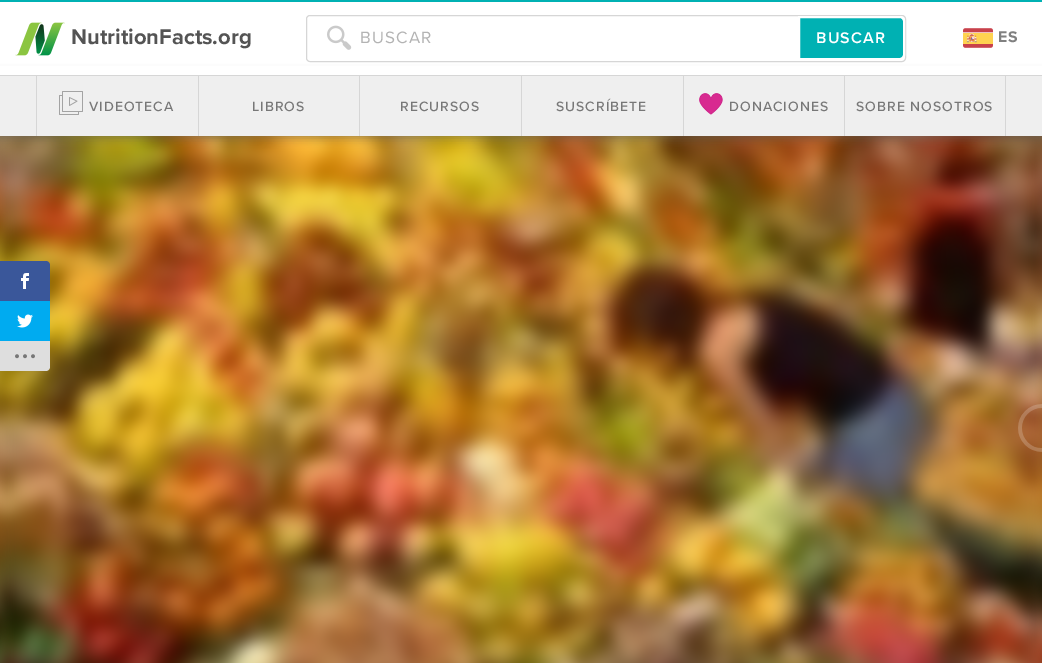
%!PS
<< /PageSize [1042 663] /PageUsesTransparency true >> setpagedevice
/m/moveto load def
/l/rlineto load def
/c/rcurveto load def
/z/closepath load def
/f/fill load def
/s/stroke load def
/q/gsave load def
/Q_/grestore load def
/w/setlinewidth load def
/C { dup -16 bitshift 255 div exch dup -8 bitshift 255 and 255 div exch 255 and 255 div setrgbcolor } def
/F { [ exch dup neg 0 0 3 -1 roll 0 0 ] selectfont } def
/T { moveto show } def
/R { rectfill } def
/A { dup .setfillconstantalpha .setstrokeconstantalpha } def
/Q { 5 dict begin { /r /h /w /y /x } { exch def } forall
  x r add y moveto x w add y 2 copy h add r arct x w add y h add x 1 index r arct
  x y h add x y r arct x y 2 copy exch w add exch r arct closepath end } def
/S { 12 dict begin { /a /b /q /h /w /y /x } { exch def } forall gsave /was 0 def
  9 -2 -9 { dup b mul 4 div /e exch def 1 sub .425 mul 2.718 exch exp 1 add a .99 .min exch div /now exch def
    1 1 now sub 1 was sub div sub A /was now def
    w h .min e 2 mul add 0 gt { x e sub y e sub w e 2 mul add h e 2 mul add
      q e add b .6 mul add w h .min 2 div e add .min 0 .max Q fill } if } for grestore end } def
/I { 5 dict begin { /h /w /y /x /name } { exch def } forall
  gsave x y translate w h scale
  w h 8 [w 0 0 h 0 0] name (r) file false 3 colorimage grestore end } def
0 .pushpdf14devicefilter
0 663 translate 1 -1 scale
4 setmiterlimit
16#FFFFFF C
0 0 1042 663 R
(6.rgb) 0 136 1042 527 I
16#5D5D5D C
0 75 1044 63 0 5 .54 S
16#FFFFFF C
0 66 1042 9 R
16#00B1B3 C
0 0 1042 2 R
(1.rgb) 15 22 50 34 I
/ProximaNova-Bold 22 F
16#545454 C
(NutritionFacts.org) 71 44 T
16#D6D6D6 C
306.5 15.5 599 46 3.5 Q s
(2.rgb) 327 25 25 25 I
/ProximaNova-Regular 17 F
16#B3B3B3 C
360 43 m 1.25 0 (BUSCAR) ashow
16#00B1B3 C
799 17 m 101 0 l 2 0 4 2 4 4 c 0 34 l 0 2 -2 4 -4 4 c -101 0 l z q f Q_
16#FFFFFF C
2 w
s
/ProximaNova-SemiBold 16 F
816 43 m 1.25 0 (BUSCAR) ashow
(3.rgb) 963 28 30 20 I
/ProximaNova-Bold 16 F
16#808080 C
998 42 m 1 0 (ES) ashow
16#EFEFEF C
0 76 1042 60 R
16#D6D6D6 C
0 75 1042 1 R
36 76 1 60 R
(4.rgb) 59 91 24 24 I
/ProximaNova-Medium 14 F
16#777777 C
89 111 m 1 0 (VIDEOTECA) ashow
16#D6D6D6 C
198 76 1 60 R
16#777777 C
252 111 m 1 0 (LIBROS) ashow
16#D6D6D6 C
359 76 1 60 R
16#777777 C
400 111 m 1 0 (RECURSOS) ashow
16#D6D6D6 C
521 76 1 60 R
16#777777 C
556 111 m 1 0 (SUSCRÍBETE) ashow
16#D6D6D6 C
683 76 1 60 R
(5.rgb) 699 93 24 22 I
16#777777 C
729 111 m 1 0 (DONACIONES) ashow
16#D6D6D6 C
1005 76 1 60 R
844 76 1 60 R
16#777777 C
856 111 m 1 0 (SOBRE NOSOTROS) ashow
16#3A579A C
0 261 m 46 0 l 2 0 4 2 4 4 c 0 36 l -50 0 l z f
(7.rgb) 21 273 8 16 I
16#00ABF0 C
0 301 50 40 R
(8.rgb) 17 314 16 14 I
16#DEDEDE C
0 341 m 50 0 l 0 26 l 0 2 -2 4 -4 4 c -46 0 l z f
(9.rgb) 15 354 20 5 I
.poppdf14devicefilter showpage
